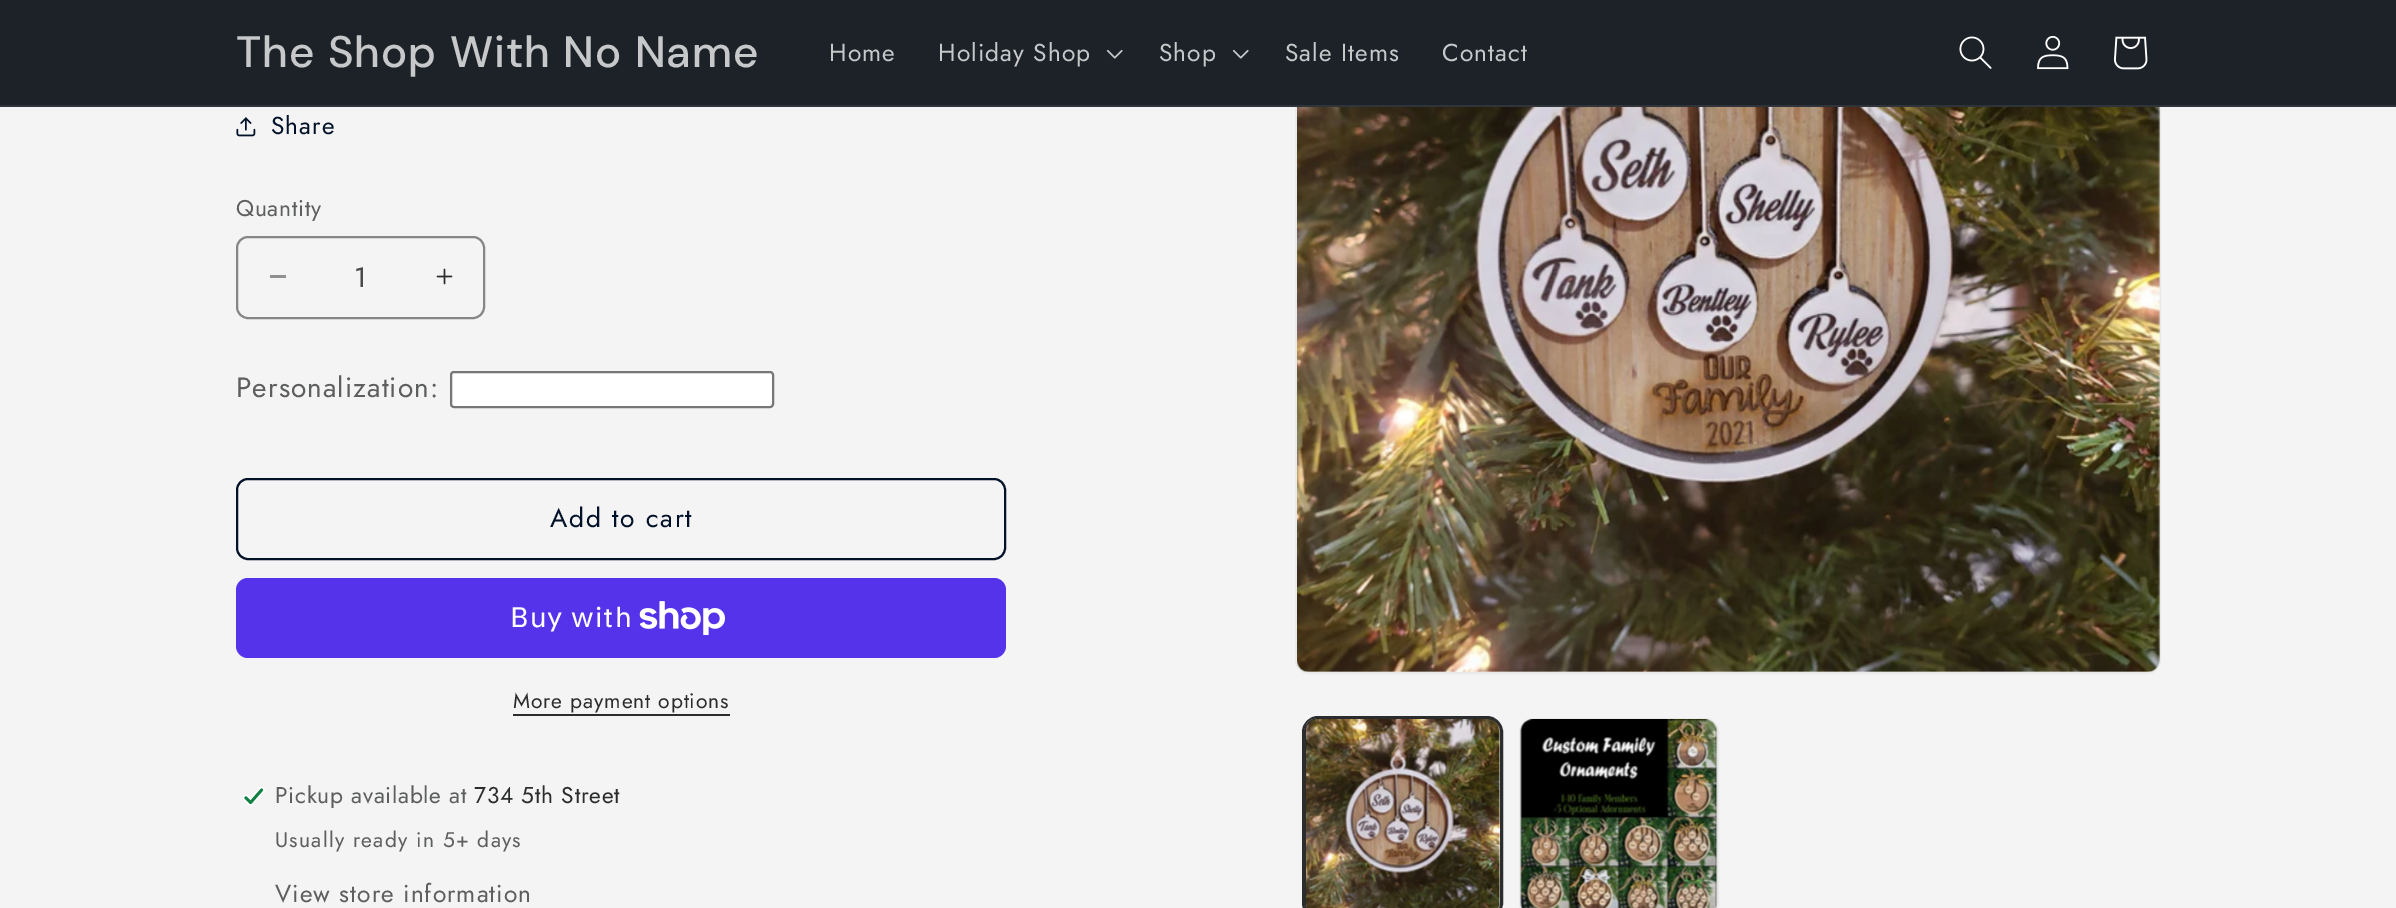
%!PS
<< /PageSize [2396 908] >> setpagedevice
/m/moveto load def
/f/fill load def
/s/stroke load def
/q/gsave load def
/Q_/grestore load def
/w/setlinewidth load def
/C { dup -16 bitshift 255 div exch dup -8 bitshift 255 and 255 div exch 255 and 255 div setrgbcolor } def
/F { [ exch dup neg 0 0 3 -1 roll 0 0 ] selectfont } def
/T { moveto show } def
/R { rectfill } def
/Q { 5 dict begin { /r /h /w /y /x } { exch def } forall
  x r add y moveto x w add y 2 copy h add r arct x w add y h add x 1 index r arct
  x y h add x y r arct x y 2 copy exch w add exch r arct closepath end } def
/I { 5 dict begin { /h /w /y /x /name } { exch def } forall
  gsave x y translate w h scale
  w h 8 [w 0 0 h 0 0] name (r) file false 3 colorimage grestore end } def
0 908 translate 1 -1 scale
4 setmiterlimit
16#F4F4F4 C
0 0 2396 908 R
16#EAEAEA C
2 w
1296 -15 864 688 13 Q s
16#1C2228 C
0 0 2396 105 R
16#2E3439 C
0 105 2396 2 R
/DMSans-Medium 44.1 F
16#C6C8C9 C
236 67 m 1.1 0 (The Shop With No Name) ashow
/Jost-Regular 24.5 F
829 61 m 1.05 0 (Home) ashow
938 61 m 1.05 0 (Holiday Shop) ashow
(1.rgb) 1106 49 17 10 I
1159 61 m 1.05 0 (Shop) ashow
(1.rgb) 1232 49 17 10 I
1285 61 m 1.05 0 (Sale Items) ashow
1442 61 m 1.05 0 (Contact) ashow
(2.rgb) 1959 36 33 33 I
(3.rgb) 2037 35 32 35 I
(4.rgb) 2114 36 34 34 I
(5.rgb) 236 117 20 20 I
16#001128 C
271 134 m 1.05 0 (Share) ashow
/Jost-Regular 22.75 F
16#5D5E5F C
236 216 m .75 0 (Quantity) ashow
16#909091 C
270 275 16 3 R
(6.rgb) 436 268 17 17 I
16#858687 C
237 237 247 81 11 Q s
/Jost-Regular 28 F
16#494A4B C
(1) 354 287 T
16#5D5E5F C
236 397 m 1.05 0 (Personalization:) ashow
16#FFFFFF C
451 372 322 35 3 Q q f Q_
16#767676 C
s
16#001128 C
237 479 768 80 11 Q s
/Jost-Regular 26.25 F
550 527 m 1.75 0 (Add to cart) ashow
16#5433EB C
236 578 770 80 12 Q f
/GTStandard-Regular 28 F
16#FFFFFF C
510 627 m 1.05 0 (Buy with) ashow
(7.rgb) 639 601 86 34 I
/Jost-Regular 21 F
16#2B2C2D C
513 708 m .9 0 (More payment options) ashow
513 714 217 2 R
(8.rgb) 243 787 22 19 I
/Jost-Regular 22.75 F
16#5D5E5F C
275 803 m .75 0 (Pickup available at) ashow
16#2B2C2D C
474 803 m .75 0 (734 5th Street) ashow
/Jost-Regular 21 F
16#5D5E5F C
275 847 m 1.25 0 (Usually ready in 5+ days) ashow
/Jost-Regular 24.5 F
275 902 m 1.05 0 (View store information) ashow
(9.rgb) 1297 107 863 565 I
16#2B2C2D C
1303 717 199 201 15 Q s
1305 719 196 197 13 Q s
(10.rgb) 1306 719 195 189 I
16#EAEAEA C
1520 719 198 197 13 Q s
(11.rgb) 1520 719 198 189 I
showpage
